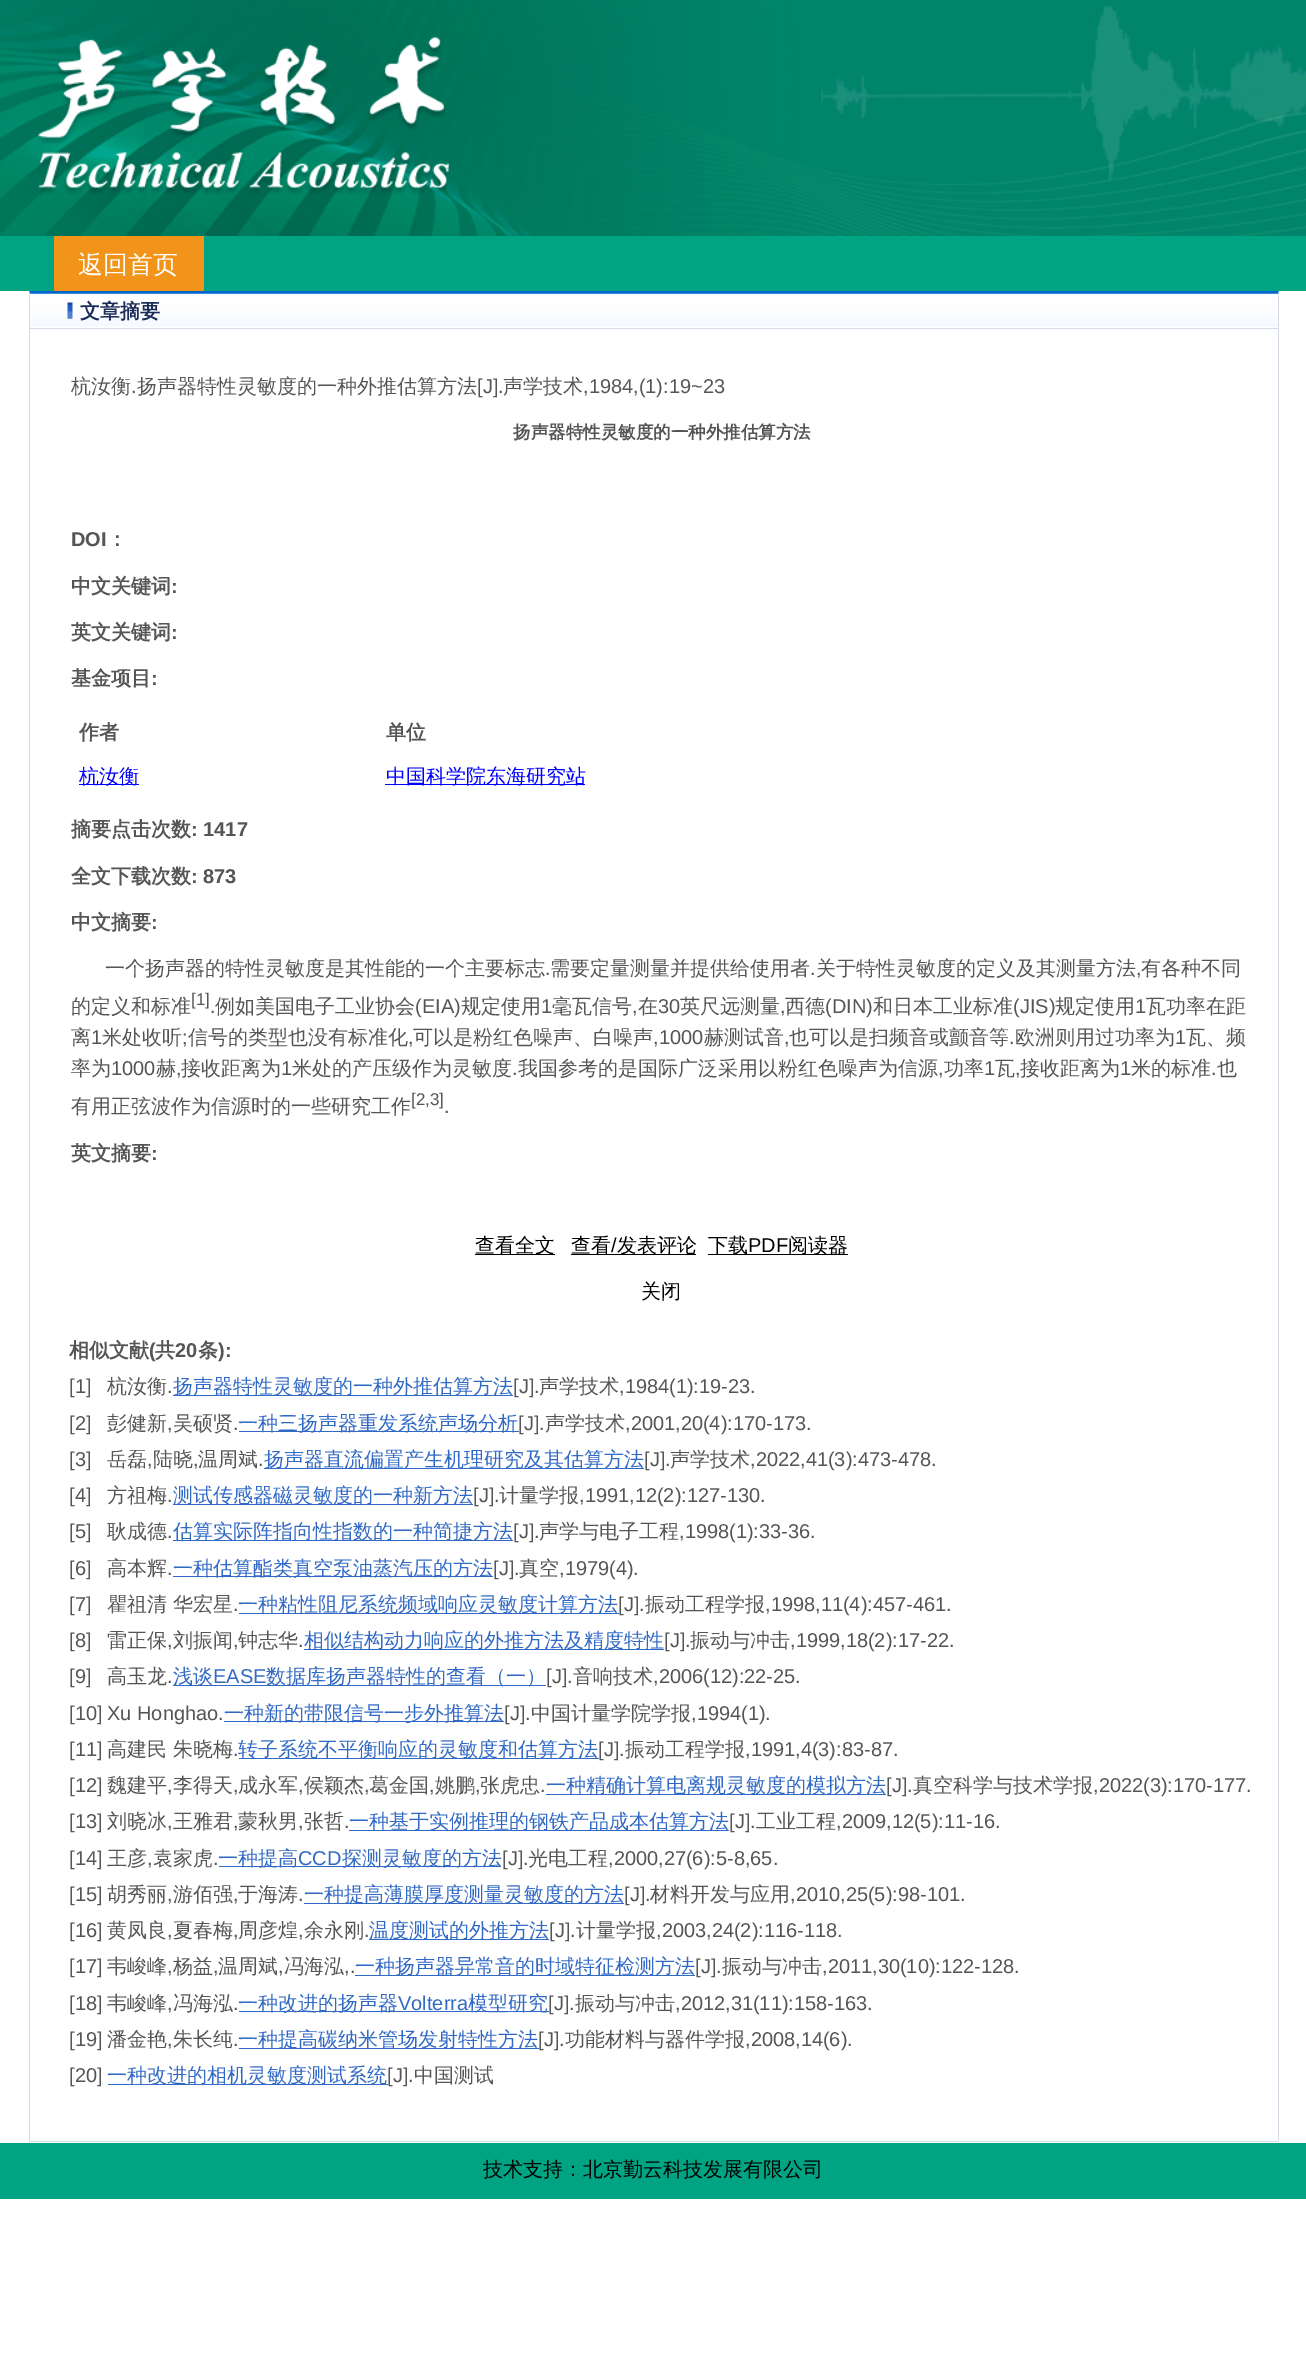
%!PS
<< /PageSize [1306 2362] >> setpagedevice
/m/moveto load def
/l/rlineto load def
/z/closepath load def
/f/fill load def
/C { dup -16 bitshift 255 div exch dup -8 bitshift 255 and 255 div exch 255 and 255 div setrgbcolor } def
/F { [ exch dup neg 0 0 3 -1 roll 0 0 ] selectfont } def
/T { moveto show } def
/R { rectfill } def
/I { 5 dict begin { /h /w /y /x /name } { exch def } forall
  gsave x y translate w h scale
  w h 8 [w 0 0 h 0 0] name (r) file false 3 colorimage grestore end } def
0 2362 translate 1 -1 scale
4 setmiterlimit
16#FFFFFF C
0 0 1306 2362 R
(1.rgb) 0 0 1306 236 I
(2.rgb) 38 37 412 158 I
16#00A483 C
0 236 1306 55 R
16#F19419 C
54 236 150 55 R
/WenQuanYiZenHei-Medium 25 F
16#FFFFFF C
(返回首页) 78 273 T
16#0066CC C
29 291 m 1250 0 l -1 3 l -1248 0 l z f
16#D3DBE6 C
1279 291 m 0 1851 l -1 -1 l 0 -1847 l z f
29 2141 1250 1 R
29 2142 m 0 -1851 l 1 3 l 0 1847 l z f
(3.rgb) 30 293 1248 34 I
30 328 1248 1 R
(4.rgb) 67 302 6 17 I
/WenQuanYiZenHei-Bold 20 F
16#1C2C58 C
(文章摘要) 80 318 T
/WenQuanYiZenHei-Medium 20 F
16#555555 C
(杭汝衡) 71 393 T
/LiberationSans-Regular 20 F
(.) 131 393 T
/WenQuanYiZenHei-Medium 20 F
(扬声器特性灵敏度的一种外推估算方法) 137 393 T
/LiberationSans-Regular 20 F
([J].) 477 393 T
/WenQuanYiZenHei-Medium 20 F
(声学技术) 503 393 T
/LiberationSans-Regular 20 F
(,1984,\(1\):19~23) 583 393 T
/WenQuanYiZenHei-Bold 17.5 F
(扬声器特性灵敏度的一种外推估算方法) 513 438 T
/LiberationSans-Bold 20 F
(DOI) 71 546 T
/WenQuanYiZenHei-Bold 20 F
(：) 107 546 T
(中文关键词) 71 593 T
/LiberationSans-Bold 20 F
(:) 171 593 T
/WenQuanYiZenHei-Bold 20 F
(英文关键词) 71 639 T
/LiberationSans-Bold 20 F
(:) 171 639 T
/WenQuanYiZenHei-Bold 20 F
(基金项目) 71 685 T
/LiberationSans-Bold 20 F
(:) 151 685 T
/WenQuanYiZenHei-Bold 20 F
(作者) 79 739 T
(单位) 386 739 T
16#0000FF C
79 784 60 1 R
/WenQuanYiZenHei-Medium 20 F
(杭汝衡) 79 783 T
385 784 200 1 R
(中国科学院东海研究站) 386 783 T
/WenQuanYiZenHei-Bold 20 F
16#555555 C
(摘要点击次数) 71 836 T
/LiberationSans-Bold 20 F
(: 1417) 191 836 T
/WenQuanYiZenHei-Bold 20 F
(全文下载次数) 71 883 T
/LiberationSans-Bold 20 F
(: 873) 191 883 T
/WenQuanYiZenHei-Bold 20 F
(中文摘要) 71 929 T
/LiberationSans-Bold 20 F
(:) 151 929 T
/WenQuanYiZenHei-Medium 20 F
(一个扬声器的特性灵敏度是其性能的一个主要标志) 105 975 T
/LiberationSans-Regular 20 F
(.) 545 975 T
/WenQuanYiZenHei-Medium 20 F
(需要定量测量并提供给使用者) 550 975 T
/LiberationSans-Regular 20 F
(.) 810 975 T
/WenQuanYiZenHei-Medium 20 F
(关于特性灵敏度的定义及其测量方法) 816 975 T
/LiberationSans-Regular 20 F
(,) 1136 975 T
/WenQuanYiZenHei-Medium 20 F
(有各种不同) 1141 975 T
(的定义和标准) 71 1013 T
/LiberationSans-Regular 17 F
([1]) 191 1005 T
/LiberationSans-Regular 20 F
(.) 210 1013 T
/WenQuanYiZenHei-Medium 20 F
(例如美国电子工业协会) 215 1013 T
/LiberationSans-Regular 20 F
(\(EIA\)) 415 1013 T
/WenQuanYiZenHei-Medium 20 F
(规定使用) 461 1013 T
/LiberationSans-Regular 20 F
(1) 541 1013 T
/WenQuanYiZenHei-Medium 20 F
(毫瓦信号) 552 1013 T
/LiberationSans-Regular 20 F
(,) 632 1013 T
/WenQuanYiZenHei-Medium 20 F
(在) 638 1013 T
/LiberationSans-Regular 20 F
(30) 658 1013 T
/WenQuanYiZenHei-Medium 20 F
(英尺远测量) 680 1013 T
/LiberationSans-Regular 20 F
(,) 780 1013 T
/WenQuanYiZenHei-Medium 20 F
(西德) 785 1013 T
/LiberationSans-Regular 20 F
(\(DIN\)) 825 1013 T
/WenQuanYiZenHei-Medium 20 F
(和日本工业标准) 873 1013 T
/LiberationSans-Regular 20 F
(\(JIS\)) 1013 1013 T
/WenQuanYiZenHei-Medium 20 F
(规定使用) 1055 1013 T
/LiberationSans-Regular 20 F
(1) 1135 1013 T
/WenQuanYiZenHei-Medium 20 F
(瓦功率在距) 1146 1013 T
(离) 71 1044 T
/LiberationSans-Regular 20 F
(1) 91 1044 T
/WenQuanYiZenHei-Medium 20 F
(米处收听) 102 1044 T
/LiberationSans-Regular 20 F
(;) 182 1044 T
/WenQuanYiZenHei-Medium 20 F
(信号的类型也没有标准化) 188 1044 T
/LiberationSans-Regular 20 F
(,) 408 1044 T
/WenQuanYiZenHei-Medium 20 F
(可以是粉红色噪声、白噪声) 413 1044 T
/LiberationSans-Regular 20 F
(,1000) 653 1044 T
/WenQuanYiZenHei-Medium 20 F
(赫测试音) 704 1044 T
/LiberationSans-Regular 20 F
(,) 784 1044 T
/WenQuanYiZenHei-Medium 20 F
(也可以是扫频音或颤音等) 789 1044 T
/LiberationSans-Regular 20 F
(.) 1009 1044 T
/WenQuanYiZenHei-Medium 20 F
(欧洲则用过功率为) 1015 1044 T
/LiberationSans-Regular 20 F
(1) 1175 1044 T
/WenQuanYiZenHei-Medium 20 F
(瓦、频) 1186 1044 T
(率为) 71 1075 T
/LiberationSans-Regular 20 F
(1000) 111 1075 T
/WenQuanYiZenHei-Medium 20 F
(赫) 156 1075 T
/LiberationSans-Regular 20 F
(,) 176 1075 T
/WenQuanYiZenHei-Medium 20 F
(接收距离为) 181 1075 T
/LiberationSans-Regular 20 F
(1) 281 1075 T
/WenQuanYiZenHei-Medium 20 F
(米处的产压级作为灵敏度) 292 1075 T
/LiberationSans-Regular 20 F
(.) 512 1075 T
/WenQuanYiZenHei-Medium 20 F
(我国参考的是国际广泛采用以粉红色噪声为信源) 518 1075 T
/LiberationSans-Regular 20 F
(,) 938 1075 T
/WenQuanYiZenHei-Medium 20 F
(功率) 944 1075 T
/LiberationSans-Regular 20 F
(1) 984 1075 T
/WenQuanYiZenHei-Medium 20 F
(瓦) 995 1075 T
/LiberationSans-Regular 20 F
(,) 1015 1075 T
/WenQuanYiZenHei-Medium 20 F
(接收距离为) 1020 1075 T
/LiberationSans-Regular 20 F
(1) 1120 1075 T
/WenQuanYiZenHei-Medium 20 F
(米的标准) 1131 1075 T
/LiberationSans-Regular 20 F
(.) 1211 1075 T
/WenQuanYiZenHei-Medium 20 F
(也) 1217 1075 T
(有用正弦波作为信源时的一些研究工作) 71 1113 T
/LiberationSans-Regular 17 F
([2,3]) 411 1105 T
/LiberationSans-Regular 20 F
(.) 444 1113 T
/WenQuanYiZenHei-Bold 20 F
(英文摘要) 71 1160 T
/LiberationSans-Bold 20 F
(:) 151 1160 T
16#000000 C
475 1254 80 1 R
/WenQuanYiZenHei-Medium 20 F
(查看全文) 475 1252 T
571 1254 125 1 R
(查看) 571 1252 T
/LiberationSans-Regular 20 F
(/) 611 1252 T
/WenQuanYiZenHei-Medium 20 F
(发表评论) 617 1252 T
708 1254 140 1 R
(下载) 708 1252 T
/LiberationSans-Regular 20 F
(PDF) 748 1252 T
/WenQuanYiZenHei-Medium 20 F
(阅读器) 788 1252 T
(关闭) 641 1298 T
/WenQuanYiZenHei-Bold 20 F
16#555555 C
(相似文献) 69 1357 T
/LiberationSans-Bold 20 F
(\() 149 1357 T
/WenQuanYiZenHei-Bold 20 F
(共) 155 1357 T
/LiberationSans-Bold 20 F
(20) 175 1357 T
/WenQuanYiZenHei-Bold 20 F
(条) 198 1357 T
/LiberationSans-Bold 20 F
(\):) 218 1357 T
/LiberationSans-Regular 20 F
([1]) 69 1393 T
/WenQuanYiZenHei-Medium 20 F
(杭汝衡) 107 1393 T
/LiberationSans-Regular 20 F
(.) 167 1393 T
16#316AC5 C
173 1395 340 1 R
/WenQuanYiZenHei-Medium 20 F
(扬声器特性灵敏度的一种外推估算方法) 173 1393 T
/LiberationSans-Regular 20 F
16#555555 C
([J].) 513 1393 T
/WenQuanYiZenHei-Medium 20 F
(声学技术) 539 1393 T
/LiberationSans-Regular 20 F
(,1984\(1\):19-23.) 619 1393 T
([2]) 69 1430 T
/WenQuanYiZenHei-Medium 20 F
(彭健新) 107 1430 T
/LiberationSans-Regular 20 F
(,) 167 1430 T
/WenQuanYiZenHei-Medium 20 F
(吴硕贤) 173 1430 T
/LiberationSans-Regular 20 F
(.) 233 1430 T
16#316AC5 C
239 1431 280 1 R
/WenQuanYiZenHei-Medium 20 F
(一种三扬声器重发系统声场分析) 238 1430 T
/LiberationSans-Regular 20 F
16#555555 C
([J].) 518 1430 T
/WenQuanYiZenHei-Medium 20 F
(声学技术) 545 1430 T
/LiberationSans-Regular 20 F
(,2001,20\(4\):170-173.) 625 1430 T
([3]) 69 1466 T
/WenQuanYiZenHei-Medium 20 F
(岳磊) 107 1466 T
/LiberationSans-Regular 20 F
(,) 147 1466 T
/WenQuanYiZenHei-Medium 20 F
(陆晓) 153 1466 T
/LiberationSans-Regular 20 F
(,) 193 1466 T
/WenQuanYiZenHei-Medium 20 F
(温周斌) 198 1466 T
/LiberationSans-Regular 20 F
(.) 258 1466 T
16#316AC5 C
264 1468 380 1 R
/WenQuanYiZenHei-Medium 20 F
(扬声器直流偏置产生机理研究及其估算方法) 264 1466 T
/LiberationSans-Regular 20 F
16#555555 C
([J].) 644 1466 T
/WenQuanYiZenHei-Medium 20 F
(声学技术) 670 1466 T
/LiberationSans-Regular 20 F
(,2022,41\(3\):473-478.) 750 1466 T
([4]) 69 1502 T
/WenQuanYiZenHei-Medium 20 F
(方祖梅) 107 1502 T
/LiberationSans-Regular 20 F
(.) 167 1502 T
16#316AC5 C
173 1504 300 1 R
/WenQuanYiZenHei-Medium 20 F
(测试传感器磁灵敏度的一种新方法) 173 1502 T
/LiberationSans-Regular 20 F
16#555555 C
([J].) 473 1502 T
/WenQuanYiZenHei-Medium 20 F
(计量学报) 499 1502 T
/LiberationSans-Regular 20 F
(,1991,12\(2\):127-130.) 579 1502 T
([5]) 69 1538 T
/WenQuanYiZenHei-Medium 20 F
(耿成德) 107 1538 T
/LiberationSans-Regular 20 F
(.) 167 1538 T
16#316AC5 C
173 1540 340 1 R
/WenQuanYiZenHei-Medium 20 F
(估算实际阵指向性指数的一种简捷方法) 173 1538 T
/LiberationSans-Regular 20 F
16#555555 C
([J].) 513 1538 T
/WenQuanYiZenHei-Medium 20 F
(声学与电子工程) 539 1538 T
/LiberationSans-Regular 20 F
(,1998\(1\):33-36.) 679 1538 T
([6]) 69 1575 T
/WenQuanYiZenHei-Medium 20 F
(高本辉) 107 1575 T
/LiberationSans-Regular 20 F
(.) 167 1575 T
16#316AC5 C
173 1576 320 1 R
/WenQuanYiZenHei-Medium 20 F
(一种估算酯类真空泵油蒸汽压的方法) 173 1575 T
/LiberationSans-Regular 20 F
16#555555 C
([J].) 493 1575 T
/WenQuanYiZenHei-Medium 20 F
(真空) 519 1575 T
/LiberationSans-Regular 20 F
(,1979\(4\).) 559 1575 T
([7]) 69 1611 T
/WenQuanYiZenHei-Medium 20 F
(瞿祖清 华宏星) 107 1611 T
/LiberationSans-Regular 20 F
(.) 233 1611 T
16#316AC5 C
239 1613 380 1 R
/WenQuanYiZenHei-Medium 20 F
(一种粘性阻尼系统频域响应灵敏度计算方法) 238 1611 T
/LiberationSans-Regular 20 F
16#555555 C
([J].) 618 1611 T
/WenQuanYiZenHei-Medium 20 F
(振动工程学报) 645 1611 T
/LiberationSans-Regular 20 F
(,1998,11\(4\):457-461.) 765 1611 T
([8]) 69 1647 T
/WenQuanYiZenHei-Medium 20 F
(雷正保) 107 1647 T
/LiberationSans-Regular 20 F
(,) 167 1647 T
/WenQuanYiZenHei-Medium 20 F
(刘振闻) 173 1647 T
/LiberationSans-Regular 20 F
(,) 233 1647 T
/WenQuanYiZenHei-Medium 20 F
(钟志华) 238 1647 T
/LiberationSans-Regular 20 F
(.) 298 1647 T
16#316AC5 C
304 1649 360 1 R
/WenQuanYiZenHei-Medium 20 F
(相似结构动力响应的外推方法及精度特性) 304 1647 T
/LiberationSans-Regular 20 F
16#555555 C
([J].) 664 1647 T
/WenQuanYiZenHei-Medium 20 F
(振动与冲击) 690 1647 T
/LiberationSans-Regular 20 F
(,1999,18\(2\):17-22.) 790 1647 T
([9]) 69 1683 T
/WenQuanYiZenHei-Medium 20 F
(高玉龙) 107 1683 T
/LiberationSans-Regular 20 F
(.) 167 1683 T
16#316AC5 C
173 1685 373 1 R
/WenQuanYiZenHei-Medium 20 F
(浅谈) 173 1683 T
/LiberationSans-Regular 20 F
(EASE) 213 1683 T
/WenQuanYiZenHei-Medium 20 F
(数据库扬声器特性的查看（一）) 266 1683 T
/LiberationSans-Regular 20 F
16#555555 C
([J].) 546 1683 T
/WenQuanYiZenHei-Medium 20 F
(音响技术) 573 1683 T
/LiberationSans-Regular 20 F
(,2006\(12\):22-25.) 653 1683 T
([10]) 69 1720 T
(Xu Honghao.) 107 1720 T
16#316AC5 C
224 1721 280 1 R
/WenQuanYiZenHei-Medium 20 F
(一种新的带限信号一步外推算法) 224 1720 T
/LiberationSans-Regular 20 F
16#555555 C
([J].) 504 1720 T
/WenQuanYiZenHei-Medium 20 F
(中国计量学院学报) 531 1720 T
/LiberationSans-Regular 20 F
(,1994\(1\).) 691 1720 T
([11]) 69 1756 T
/WenQuanYiZenHei-Medium 20 F
(高建民 朱晓梅) 107 1756 T
/LiberationSans-Regular 20 F
(.) 233 1756 T
16#316AC5 C
239 1758 360 1 R
/WenQuanYiZenHei-Medium 20 F
(转子系统不平衡响应的灵敏度和估算方法) 238 1756 T
/LiberationSans-Regular 20 F
16#555555 C
([J].) 598 1756 T
/WenQuanYiZenHei-Medium 20 F
(振动工程学报) 625 1756 T
/LiberationSans-Regular 20 F
(,1991,4\(3\):83-87.) 745 1756 T
([12]) 69 1792 T
/WenQuanYiZenHei-Medium 20 F
(魏建平) 107 1792 T
/LiberationSans-Regular 20 F
(,) 167 1792 T
/WenQuanYiZenHei-Medium 20 F
(李得天) 173 1792 T
/LiberationSans-Regular 20 F
(,) 233 1792 T
/WenQuanYiZenHei-Medium 20 F
(成永军) 238 1792 T
/LiberationSans-Regular 20 F
(,) 298 1792 T
/WenQuanYiZenHei-Medium 20 F
(侯颖杰) 304 1792 T
/LiberationSans-Regular 20 F
(,) 364 1792 T
/WenQuanYiZenHei-Medium 20 F
(葛金国) 369 1792 T
/LiberationSans-Regular 20 F
(,) 429 1792 T
/WenQuanYiZenHei-Medium 20 F
(姚鹏) 435 1792 T
/LiberationSans-Regular 20 F
(,) 475 1792 T
/WenQuanYiZenHei-Medium 20 F
(张虎忠) 480 1792 T
/LiberationSans-Regular 20 F
(.) 540 1792 T
16#316AC5 C
546 1794 340 1 R
/WenQuanYiZenHei-Medium 20 F
(一种精确计算电离规灵敏度的模拟方法) 546 1792 T
/LiberationSans-Regular 20 F
16#555555 C
([J].) 886 1792 T
/WenQuanYiZenHei-Medium 20 F
(真空科学与技术学报) 913 1792 T
/LiberationSans-Regular 20 F
(,2022\(3\):170-177.) 1093 1792 T
([13]) 69 1828 T
/WenQuanYiZenHei-Medium 20 F
(刘晓冰) 107 1828 T
/LiberationSans-Regular 20 F
(,) 167 1828 T
/WenQuanYiZenHei-Medium 20 F
(王雅君) 173 1828 T
/LiberationSans-Regular 20 F
(,) 233 1828 T
/WenQuanYiZenHei-Medium 20 F
(蒙秋男) 238 1828 T
/LiberationSans-Regular 20 F
(,) 298 1828 T
/WenQuanYiZenHei-Medium 20 F
(张哲) 304 1828 T
/LiberationSans-Regular 20 F
(.) 344 1828 T
16#316AC5 C
349 1830 380 1 R
/WenQuanYiZenHei-Medium 20 F
(一种基于实例推理的钢铁产品成本估算方法) 349 1828 T
/LiberationSans-Regular 20 F
16#555555 C
([J].) 729 1828 T
/WenQuanYiZenHei-Medium 20 F
(工业工程) 756 1828 T
/LiberationSans-Regular 20 F
(,2009,12\(5\):11-16.) 836 1828 T
([14]) 69 1865 T
/WenQuanYiZenHei-Medium 20 F
(王彦) 107 1865 T
/LiberationSans-Regular 20 F
(,) 147 1865 T
/WenQuanYiZenHei-Medium 20 F
(袁家虎) 153 1865 T
/LiberationSans-Regular 20 F
(.) 213 1865 T
16#316AC5 C
219 1866 282 1 R
/WenQuanYiZenHei-Medium 20 F
(一种提高) 218 1865 T
/LiberationSans-Regular 20 F
(CCD) 298 1865 T
/WenQuanYiZenHei-Medium 20 F
(探测灵敏度的方法) 342 1865 T
/LiberationSans-Regular 20 F
16#555555 C
([J].) 502 1865 T
/WenQuanYiZenHei-Medium 20 F
(光电工程) 528 1865 T
/LiberationSans-Regular 20 F
(,2000,27\(6\):5-8,65.) 608 1865 T
([15]) 69 1901 T
/WenQuanYiZenHei-Medium 20 F
(胡秀丽) 107 1901 T
/LiberationSans-Regular 20 F
(,) 167 1901 T
/WenQuanYiZenHei-Medium 20 F
(游佰强) 173 1901 T
/LiberationSans-Regular 20 F
(,) 233 1901 T
/WenQuanYiZenHei-Medium 20 F
(于海涛) 238 1901 T
/LiberationSans-Regular 20 F
(.) 298 1901 T
16#316AC5 C
304 1903 320 1 R
/WenQuanYiZenHei-Medium 20 F
(一种提高薄膜厚度测量灵敏度的方法) 304 1901 T
/LiberationSans-Regular 20 F
16#555555 C
([J].) 624 1901 T
/WenQuanYiZenHei-Medium 20 F
(材料开发与应用) 650 1901 T
/LiberationSans-Regular 20 F
(,2010,25\(5\):98-101.) 790 1901 T
([16]) 69 1937 T
/WenQuanYiZenHei-Medium 20 F
(黄凤良) 107 1937 T
/LiberationSans-Regular 20 F
(,) 167 1937 T
/WenQuanYiZenHei-Medium 20 F
(夏春梅) 173 1937 T
/LiberationSans-Regular 20 F
(,) 233 1937 T
/WenQuanYiZenHei-Medium 20 F
(周彦煌) 238 1937 T
/LiberationSans-Regular 20 F
(,) 298 1937 T
/WenQuanYiZenHei-Medium 20 F
(余永刚) 304 1937 T
/LiberationSans-Regular 20 F
(.) 364 1937 T
16#316AC5 C
369 1939 180 1 R
/WenQuanYiZenHei-Medium 20 F
(温度测试的外推方法) 369 1937 T
/LiberationSans-Regular 20 F
16#555555 C
([J].) 549 1937 T
/WenQuanYiZenHei-Medium 20 F
(计量学报) 576 1937 T
/LiberationSans-Regular 20 F
(,2003,24\(2\):116-118.) 656 1937 T
([17]) 69 1973 T
/WenQuanYiZenHei-Medium 20 F
(韦峻峰) 107 1973 T
/LiberationSans-Regular 20 F
(,) 167 1973 T
/WenQuanYiZenHei-Medium 20 F
(杨益) 173 1973 T
/LiberationSans-Regular 20 F
(,) 213 1973 T
/WenQuanYiZenHei-Medium 20 F
(温周斌) 218 1973 T
/LiberationSans-Regular 20 F
(,) 278 1973 T
/WenQuanYiZenHei-Medium 20 F
(冯海泓) 284 1973 T
/LiberationSans-Regular 20 F
(,.) 344 1973 T
16#316AC5 C
355 1975 340 1 R
/WenQuanYiZenHei-Medium 20 F
(一种扬声器异常音的时域特征检测方法) 355 1973 T
/LiberationSans-Regular 20 F
16#555555 C
([J].) 695 1973 T
/WenQuanYiZenHei-Medium 20 F
(振动与冲击) 722 1973 T
/LiberationSans-Regular 20 F
(,2011,30\(10\):122-128.) 822 1973 T
([18]) 69 2010 T
/WenQuanYiZenHei-Medium 20 F
(韦峻峰) 107 2010 T
/LiberationSans-Regular 20 F
(,) 167 2010 T
/WenQuanYiZenHei-Medium 20 F
(冯海泓) 173 2010 T
/LiberationSans-Regular 20 F
(.) 233 2010 T
16#316AC5 C
239 2011 310 1 R
/WenQuanYiZenHei-Medium 20 F
(一种改进的扬声器) 238 2010 T
/LiberationSans-Regular 20 F
(Volterra) 398 2010 T
/WenQuanYiZenHei-Medium 20 F
(模型研究) 468 2010 T
/LiberationSans-Regular 20 F
16#555555 C
([J].) 548 2010 T
/WenQuanYiZenHei-Medium 20 F
(振动与冲击) 575 2010 T
/LiberationSans-Regular 20 F
(,2012,31\(11\):158-163.) 675 2010 T
([19]) 69 2046 T
/WenQuanYiZenHei-Medium 20 F
(潘金艳) 107 2046 T
/LiberationSans-Regular 20 F
(,) 167 2046 T
/WenQuanYiZenHei-Medium 20 F
(朱长纯) 173 2046 T
/LiberationSans-Regular 20 F
(.) 233 2046 T
16#316AC5 C
239 2048 300 1 R
/WenQuanYiZenHei-Medium 20 F
(一种提高碳纳米管场发射特性方法) 238 2046 T
/LiberationSans-Regular 20 F
16#555555 C
([J].) 538 2046 T
/WenQuanYiZenHei-Medium 20 F
(功能材料与器件学报) 565 2046 T
/LiberationSans-Regular 20 F
(,2008,14\(6\).) 745 2046 T
([20]) 69 2082 T
16#316AC5 C
108 2084 280 1 R
/WenQuanYiZenHei-Medium 20 F
(一种改进的相机灵敏度测试系统) 107 2082 T
/LiberationSans-Regular 20 F
16#555555 C
([J].) 387 2082 T
/WenQuanYiZenHei-Medium 20 F
(中国测试) 414 2082 T
16#00A483 C
0 2143 1306 56 R
16#000000 C
(技术支持：北京勤云科技发展有限公司) 483 2176 T
showpage
